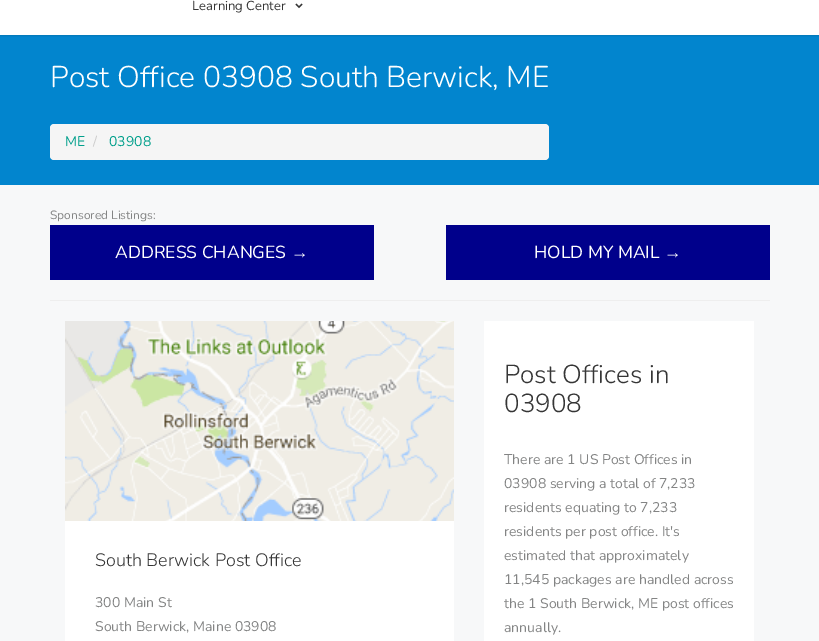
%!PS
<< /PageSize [819 641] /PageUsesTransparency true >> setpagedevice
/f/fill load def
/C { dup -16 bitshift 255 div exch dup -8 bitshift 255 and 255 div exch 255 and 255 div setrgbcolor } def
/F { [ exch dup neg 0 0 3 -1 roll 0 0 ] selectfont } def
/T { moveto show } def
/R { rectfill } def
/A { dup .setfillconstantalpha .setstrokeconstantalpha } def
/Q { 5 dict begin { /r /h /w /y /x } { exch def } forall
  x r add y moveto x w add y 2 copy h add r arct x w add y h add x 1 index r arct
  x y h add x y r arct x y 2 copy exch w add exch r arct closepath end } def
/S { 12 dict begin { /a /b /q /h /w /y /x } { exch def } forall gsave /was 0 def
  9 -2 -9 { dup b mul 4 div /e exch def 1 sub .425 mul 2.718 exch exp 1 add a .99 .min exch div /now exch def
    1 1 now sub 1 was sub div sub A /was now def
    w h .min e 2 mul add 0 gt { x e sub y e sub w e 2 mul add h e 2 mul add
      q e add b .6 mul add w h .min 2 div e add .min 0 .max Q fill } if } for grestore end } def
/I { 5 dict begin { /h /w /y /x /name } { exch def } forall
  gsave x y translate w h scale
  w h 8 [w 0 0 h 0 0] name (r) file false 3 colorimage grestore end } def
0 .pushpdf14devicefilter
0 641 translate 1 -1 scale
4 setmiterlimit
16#F7F8F9 C
0 0 819 641 R
16#0285CE C
0 35 819 150 R
16#000000 C
0 -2 819 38 0 .5 .1 S
16#FFFFFF C
0 0 819 35 R
/Nunito-Regular 13 F
16#363636 C
(Learning Center) 192 10 T
(1.rgb) 295 3 8 6 I
/Nunito-Light 30 F
16#FFFFFF C
(Post Office 03908 South Berwick, ME) 50 87 T
16#F5F5F5 C
50 124 499 36 4 Q f
/Nunito-Regular 14 F
16#009F8B C
(ME) 65 146 T
16#CCCCCC C
(/) 93 146 T
16#009F8B C
(03908) 109 146 T
/Nunito-Regular 12 F
16#838484 C
(Sponsored Listings:) 50 219 T
16#00008B C
50 225 324 55 R
/Nunito-Regular 17.5 F
16#FFFFFF C
(ADDRESS CHANGES) 115 258 T
/LiberationSerif-Regular 17.5 F
(→) 291 258 T
16#00008B C
446 225 324 55 R
/Nunito-Regular 17.5 F
16#FFFFFF C
(HOLD MY MAIL) 534 258 T
/LiberationSerif-Regular 17.5 F
(→) 664 258 T
16#EEEEEE C
50 300 720 1 R
16#FFFFFF C
65 521 389 120 R
(2.rgb) 65 321 389 200 I
/Nunito-Light 18 F
16#363636 C
(South Berwick Post Office) 95 566 T
/Nunito-Regular 14 F
16#838484 C
(300 Main St) 95 607 T
(South Berwick, Maine 03908) 95 631 T
16#FFFFFF C
484 321 270 320 R
/Nunito-Light 26 F
16#363636 C
(Post Offices in) 504 383 T
(03908) 504 412 T
/Nunito-Regular 14 F
16#838484 C
(There are 1 US Post Offices in) 504 464 T
(03908 serving a total of 7,233) 504 488 T
(residents equating to 7,233) 504 512 T
(residents per post office. It's) 504 536 T
(estimated that approximately) 504 560 T
(11,545 packages are handled across) 504 584 T
(the 1 South Berwick, ME post offices) 504 608 T
(annually.) 504 632 T
.poppdf14devicefilter showpage
